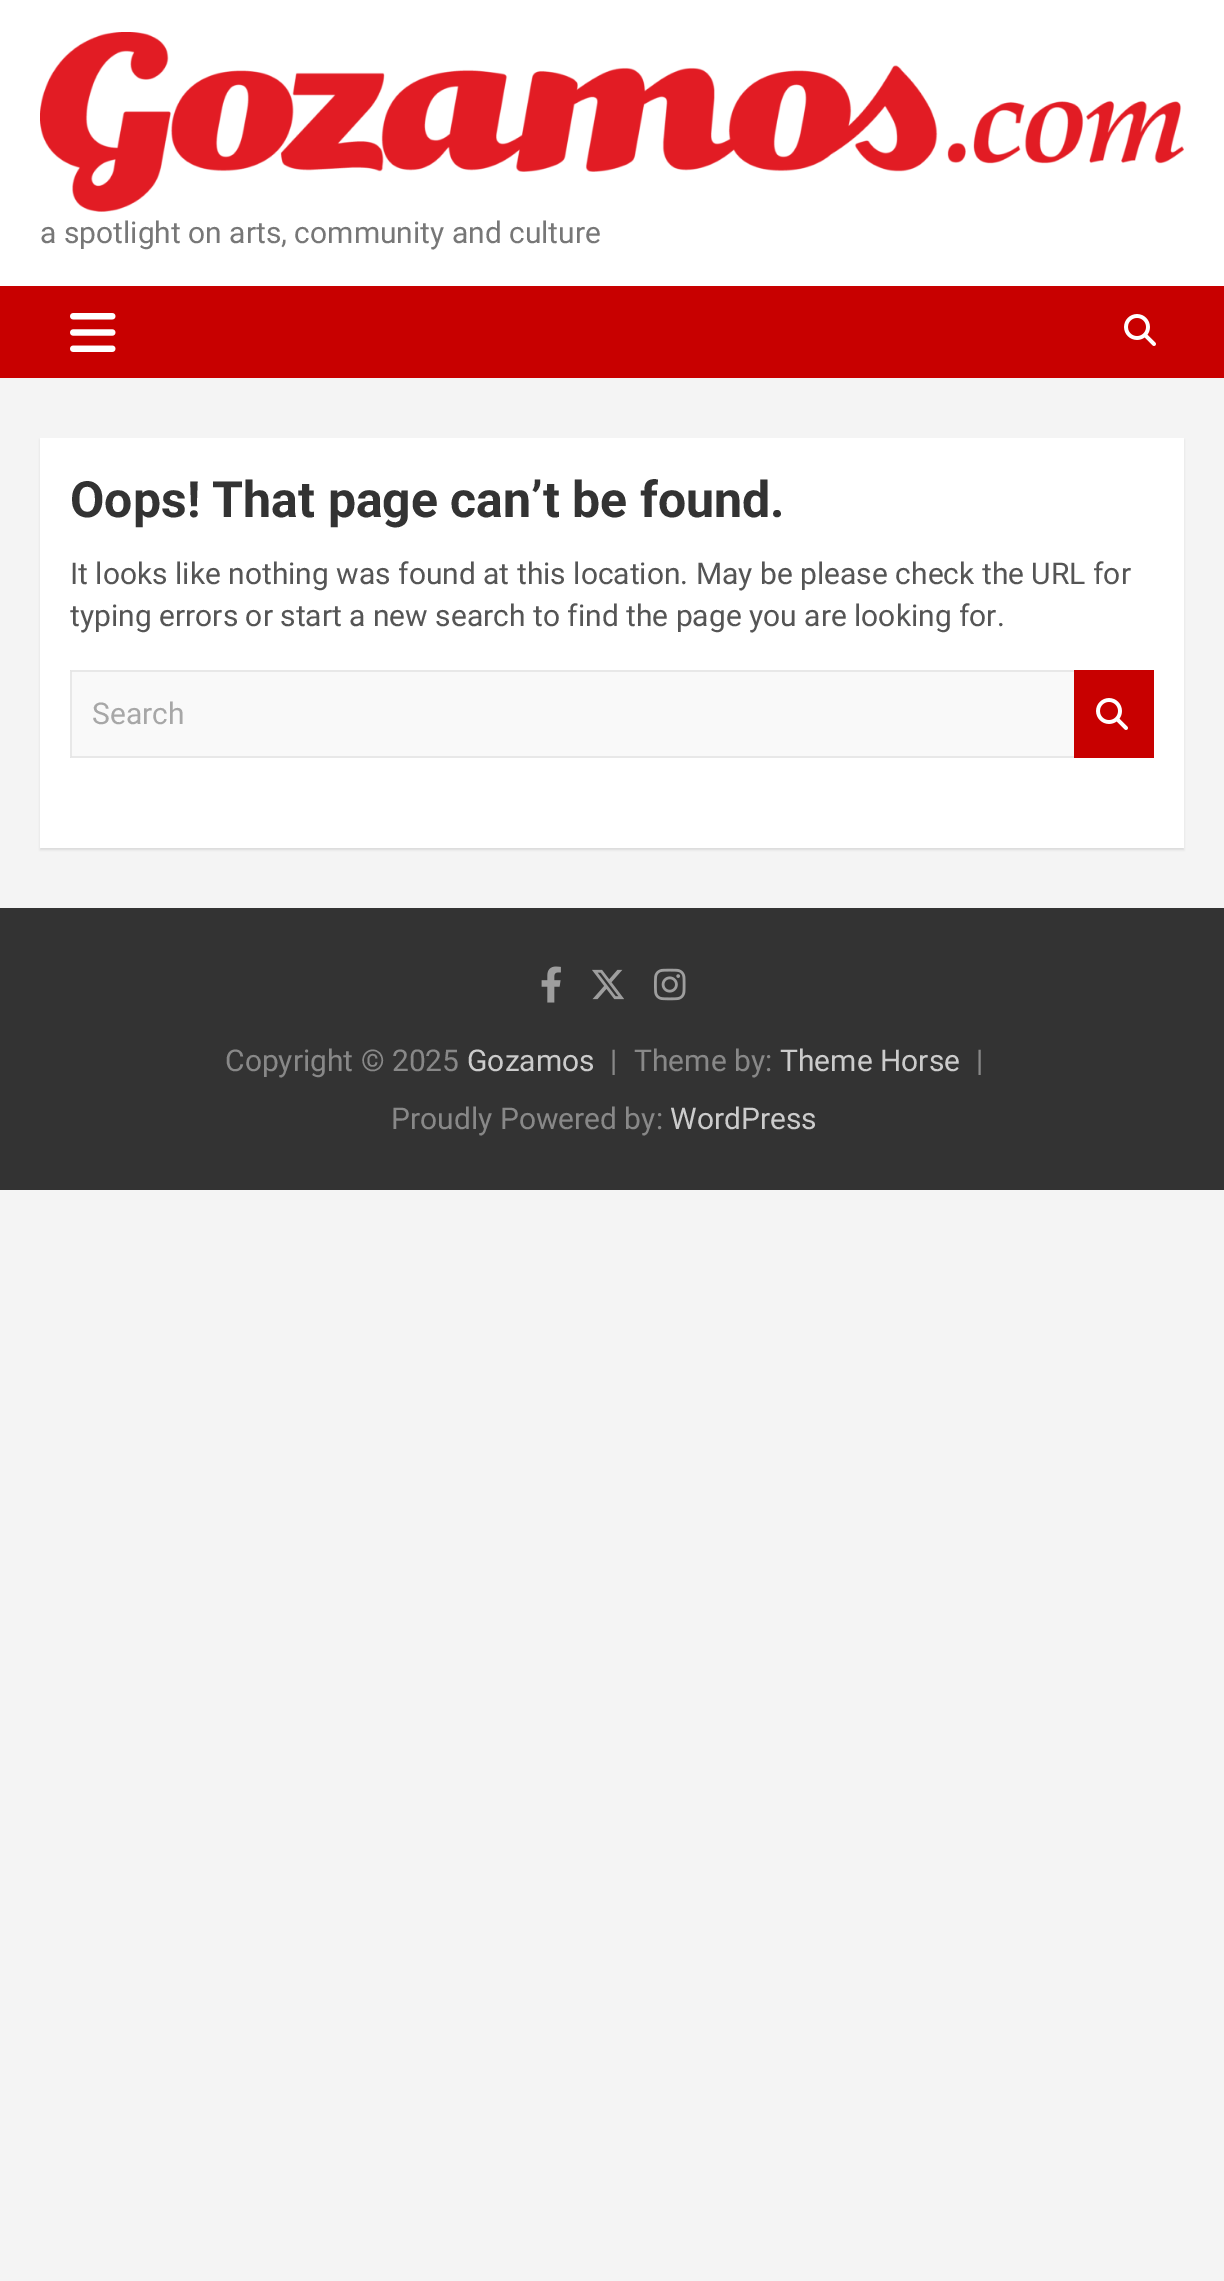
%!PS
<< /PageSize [1224 2281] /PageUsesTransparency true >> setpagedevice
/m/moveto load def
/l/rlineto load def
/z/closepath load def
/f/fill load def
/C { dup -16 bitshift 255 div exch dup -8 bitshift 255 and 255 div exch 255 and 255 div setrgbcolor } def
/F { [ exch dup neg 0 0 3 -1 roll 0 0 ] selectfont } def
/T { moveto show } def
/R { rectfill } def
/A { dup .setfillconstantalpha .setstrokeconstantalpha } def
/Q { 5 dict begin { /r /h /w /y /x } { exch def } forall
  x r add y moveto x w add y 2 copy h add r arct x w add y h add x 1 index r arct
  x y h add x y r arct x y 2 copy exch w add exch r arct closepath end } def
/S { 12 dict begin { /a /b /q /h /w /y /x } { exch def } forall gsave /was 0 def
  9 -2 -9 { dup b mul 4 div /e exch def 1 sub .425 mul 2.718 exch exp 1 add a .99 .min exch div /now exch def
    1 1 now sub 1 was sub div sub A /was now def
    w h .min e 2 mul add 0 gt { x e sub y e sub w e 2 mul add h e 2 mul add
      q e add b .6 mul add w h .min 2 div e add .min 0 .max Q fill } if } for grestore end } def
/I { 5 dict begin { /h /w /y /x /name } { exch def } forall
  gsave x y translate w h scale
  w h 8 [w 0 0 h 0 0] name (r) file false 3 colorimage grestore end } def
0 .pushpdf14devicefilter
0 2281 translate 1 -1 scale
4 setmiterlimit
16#F4F4F4 C
0 0 1224 2281 R
16#FFFFFF C
0 0 1224 286 R
(1.rgb) 40 32 1144 180 I
/Roboto-Regular 30 F
16#777777 C
(a spotlight on arts, community and culture) 40 243 T
16#C80000 C
0 286 1224 92 R
(2.rgb) 70 313 46 39 I
(3.rgb) 1124 314 32 32 I
16#000000 C
40 440 1144 410 0 1 .1 S
16#FFFFFF C
40 438 1144 410 R
/Roboto-Bold 50 F
16#333333 C
(Oops! That page can’t be found.) 70 517 T
/Roboto-Regular 30 F
16#555555 C
(It looks like nothing was found at this location. May be please check the URL for) 70 584 T
(typing errors or start a new search to find the page you are looking for.) 70 626 T
16#F9F9F9 C
72 672 1002 84 R
16#E8E8E8 C
70 670 m 1004 0 l 0 2 l -1002 0 l z f
1074 758 m -1004 0 l 2 -2 l 1002 0 l z f
0.09 A
16#000000 C
70 758 m 0 -88 l 2 2 l 0 84 l z f
1 A
16#A7A7A7 C
(Search) 92 724 T
16#C80000 C
1074 670 80 88 R
(3.rgb) 1096 698 32 32 I
16#333333 C
0 908 1224 282 R
(4.rgb) 541 966 20 37 I
(5.rgb) 592 969 32 31 I
(6.rgb) 654 968 32 33 I
16#888888 C
(Copyright © 2025) 225 1071 T
16#CCCCCC C
(Gozamos) 467 1071 T
16#888888 C
(|) 610 1071 T
(Theme by:) 634 1071 T
16#CCCCCC C
(Theme Horse) 780 1071 T
16#888888 C
(|) 976 1071 T
(Proudly Powered by:) 391 1129 T
16#CCCCCC C
(WordPress) 670 1129 T
.poppdf14devicefilter showpage
